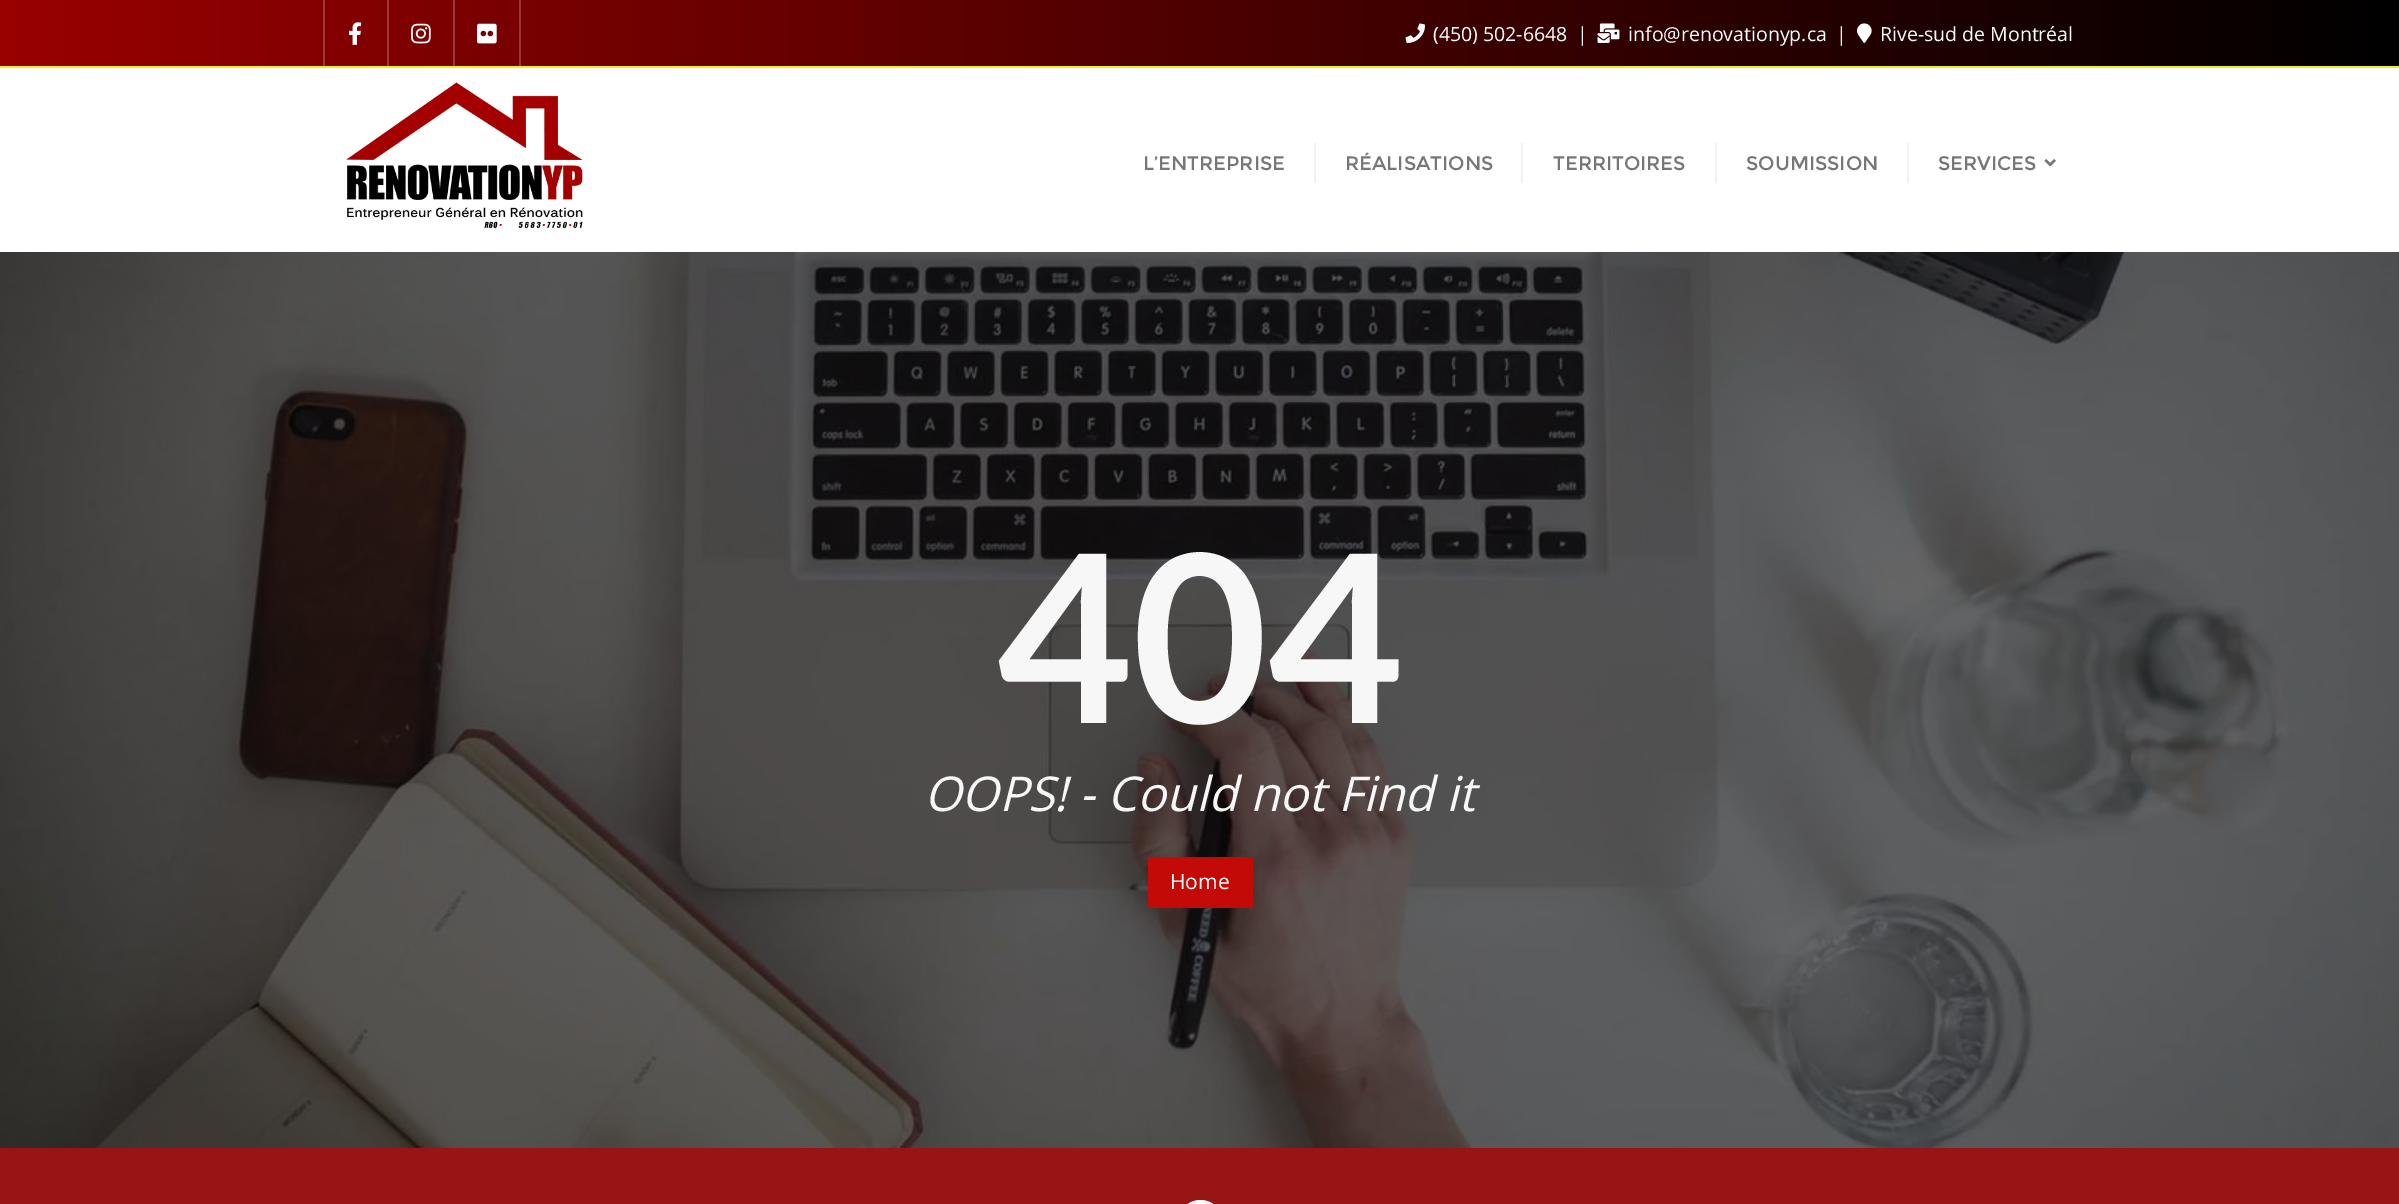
%!PS
<< /PageSize [2399 1204] >> setpagedevice
/m/moveto load def
/l/rlineto load def
/z/closepath load def
/f/fill load def
/q/gsave load def
/Q_/grestore load def
/C { dup -16 bitshift 255 div exch dup -8 bitshift 255 and 255 div exch 255 and 255 div setrgbcolor } def
/F { [ exch dup neg 0 0 3 -1 roll 0 0 ] selectfont } def
/T { moveto show } def
/R { rectfill } def
/Q { 5 dict begin { /r /h /w /y /x } { exch def } forall
  x r add y moveto x w add y 2 copy h add r arct x w add y h add x 1 index r arct
  x y h add x y r arct x y 2 copy exch w add exch r arct closepath end } def
/I { 5 dict begin { /h /w /y /x /name } { exch def } forall
  gsave x y translate w h scale
  w h 8 [w 0 0 h 0 0] name (r) file false 3 colorimage grestore end } def
0 1204 translate 1 -1 scale
4 setmiterlimit
16#FFFFFF C
0 0 2399 1204 R
q 0 0 m 2399 0 l 0 66 l -2399 0 l z clip newpath
<< /ShadingType 2 /ColorSpace /DeviceRGB /Coords [0 33 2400 33] /Extend [true true] /Function << /FunctionType 2 /Domain [0 1] /C0 [.6 0 0] /C1 [0 0 0] /N 1 >> >> shfill Q_
16#EEEE22 C
0 66 2399 2 R
16#9C3838 C
387 0 2 66 R
16#9F3838 C
323 0 2 66 R
(1.rgb) 349 22 13 23 I
16#993838 C
453 0 2 66 R
(2.rgb) 411 23 20 21 I
16#963838 C
519 0 2 66 R
(3.rgb) 477 23 20 21 I
(4.rgb) 1405 23 20 20 I
/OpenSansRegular-Regular 19.5 F
16#FFFFFF C
(\(450\) 502-6648) 1433 41 T
(|) 1577 41 T
(5.rgb) 1597 23 23 20 I
(info@renovationyp.ca) 1628 41 T
(|) 1836 41 T
(6.rgb) 1857 23 15 20 I
(Rive-sud de Montréal) 1880 41 T
(7.rgb) 346 82 237 147 I
/Montserrat-Regular 19.5 F
16#777777 C
(L’ENTREPRISE) 1143 170 T
16#F1F1F1 C
1314 143 2 40 R
16#777777 C
(RÉALISATIONS) 1345 170 T
16#F1F1F1 C
1521 143 2 40 R
16#777777 C
(TERRITOIRES) 1553 170 T
16#F1F1F1 C
1715 143 2 40 R
16#777777 C
(SOUMISSION) 1746 170 T
16#F1F1F1 C
1907 143 2 40 R
16#777777 C
(SERVICES) 1938 170 T
(8.rgb) 2044 159 12 8 I
(9.rgb) 0 252 2399 896 I
/Lato-Bold 234 F
16#F7F7F7 C
(404) 996 723 T
/OpenSansRegular-Italic 48 F
(OOPS! - Could not Find it) 924 811 T
16#C40A07 C
1148 857 105 51 3 Q f
/OpenSansRegular-Regular 21 F
16#FFFFFF C
(Home) 1170 889 T
16#991515 C
0 1148 2399 56 R
16#FFFFFF C
1178 1200 45 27 22.5 Q f
showpage
